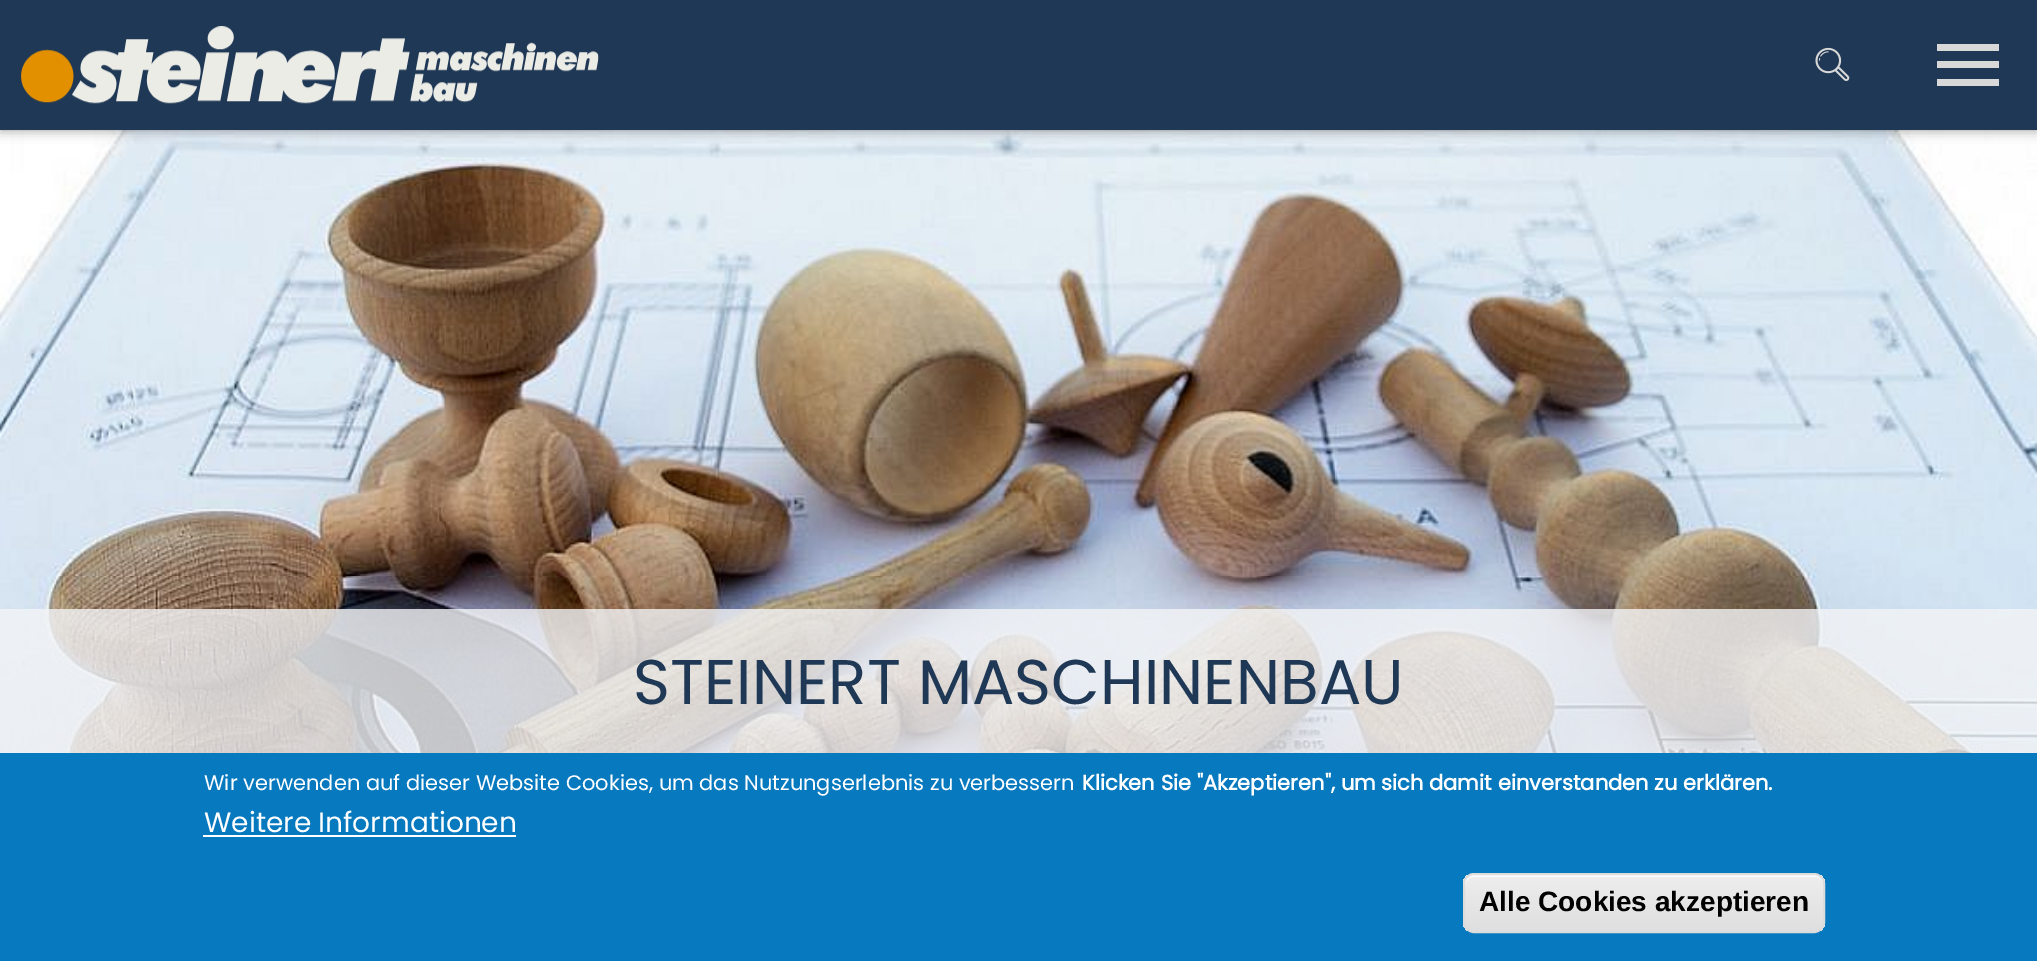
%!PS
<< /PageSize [2037 961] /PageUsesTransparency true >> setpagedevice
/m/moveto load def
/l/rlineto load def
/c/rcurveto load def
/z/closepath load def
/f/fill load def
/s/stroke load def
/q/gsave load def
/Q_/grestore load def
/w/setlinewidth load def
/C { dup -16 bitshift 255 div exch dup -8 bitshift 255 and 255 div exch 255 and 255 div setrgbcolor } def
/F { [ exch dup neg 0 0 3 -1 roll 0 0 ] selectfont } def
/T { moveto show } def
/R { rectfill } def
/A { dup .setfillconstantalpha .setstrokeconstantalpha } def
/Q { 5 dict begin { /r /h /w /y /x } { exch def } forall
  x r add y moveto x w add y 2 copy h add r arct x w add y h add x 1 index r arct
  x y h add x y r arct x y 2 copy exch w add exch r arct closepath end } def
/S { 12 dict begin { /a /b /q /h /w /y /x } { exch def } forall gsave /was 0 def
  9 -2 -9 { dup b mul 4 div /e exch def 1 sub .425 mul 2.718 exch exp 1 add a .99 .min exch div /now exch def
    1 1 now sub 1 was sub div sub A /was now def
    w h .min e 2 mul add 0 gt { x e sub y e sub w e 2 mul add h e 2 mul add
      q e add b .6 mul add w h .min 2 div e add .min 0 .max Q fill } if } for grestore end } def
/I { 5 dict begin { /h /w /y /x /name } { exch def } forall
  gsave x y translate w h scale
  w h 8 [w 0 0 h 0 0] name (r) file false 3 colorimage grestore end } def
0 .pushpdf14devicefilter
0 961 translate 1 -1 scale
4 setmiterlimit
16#FFFFFF C
0 0 2037 961 R
(3.rgb) 0 130 2037 623 I
16#000000 C
0 0 2037 130 0 6 .4 S
16#1F3855 C
0 0 2037 130 R
(1.rgb) 21 26 578 78 I
(2.rgb) 1815 47 35 34 I
16#D8D8D8 C
1937 44 62 7 R
1937 61 62 7 R
1937 79 62 7 R
0.8 A
16#F3F4F6 C
0 609 2037 144 R
/Poppins-Regular 63 F
1 A
16#1F3855 C
(STEINERT MASCHINENBAU) 633 704 T
16#0779BF C
0 753 2037 208 R
/Poppins-Regular 21 F
16#FFFFFF C
(Wir verwenden auf dieser Website Cookies, um das Nutzungserlebnis zu verbessern) 204 790 T
/Poppins-Bold 21 F
(Klicken Sie "Akzeptieren", um sich damit einverstanden zu erklären.) 1082 790 T
/Poppins-Regular 28 F
(Weitere Informationen) 204 832 T
203 835 313 2 R
q
1463 873 362 60 11 Q clip newpath
q 1463 875 m 362 0 l 0 56 l -362 0 l z clip newpath
<< /ShadingType 2 /ColorSpace /DeviceRGB /Coords [1644 875 1644 931] /Extend [true true] /Function << /FunctionType 3 /Domain [0 1] /Functions [<< /FunctionType 2 /Domain [0 1] /C0 [.929 .929 .929] /C1 [.929 .929 .929] /N 1 >> << /FunctionType 2 /Domain [0 1] /C0 [.929 .929 .929] /C1 [.875 .875 .875] /N 1 >>] /Bounds [.05] /Encode [0 1 0 1] >> >> shfill Q_
Q_
1474 877 m 341 0 l 5 0 9 4 9 9 c 0 -2 l 0 -5 -4 -9 -9 -9 c -341 0 l -5 0 -9 4 -9 9 c 0 2 l 0 -5 4 -9 9 -9 c z f
16#DCDCDC C
2 w
1464 874 360 58 10 Q s
/LiberationSans-Bold 28 F
16#000000 C
(Alle Cookies akzeptieren) 1479 911 T
.poppdf14devicefilter showpage
